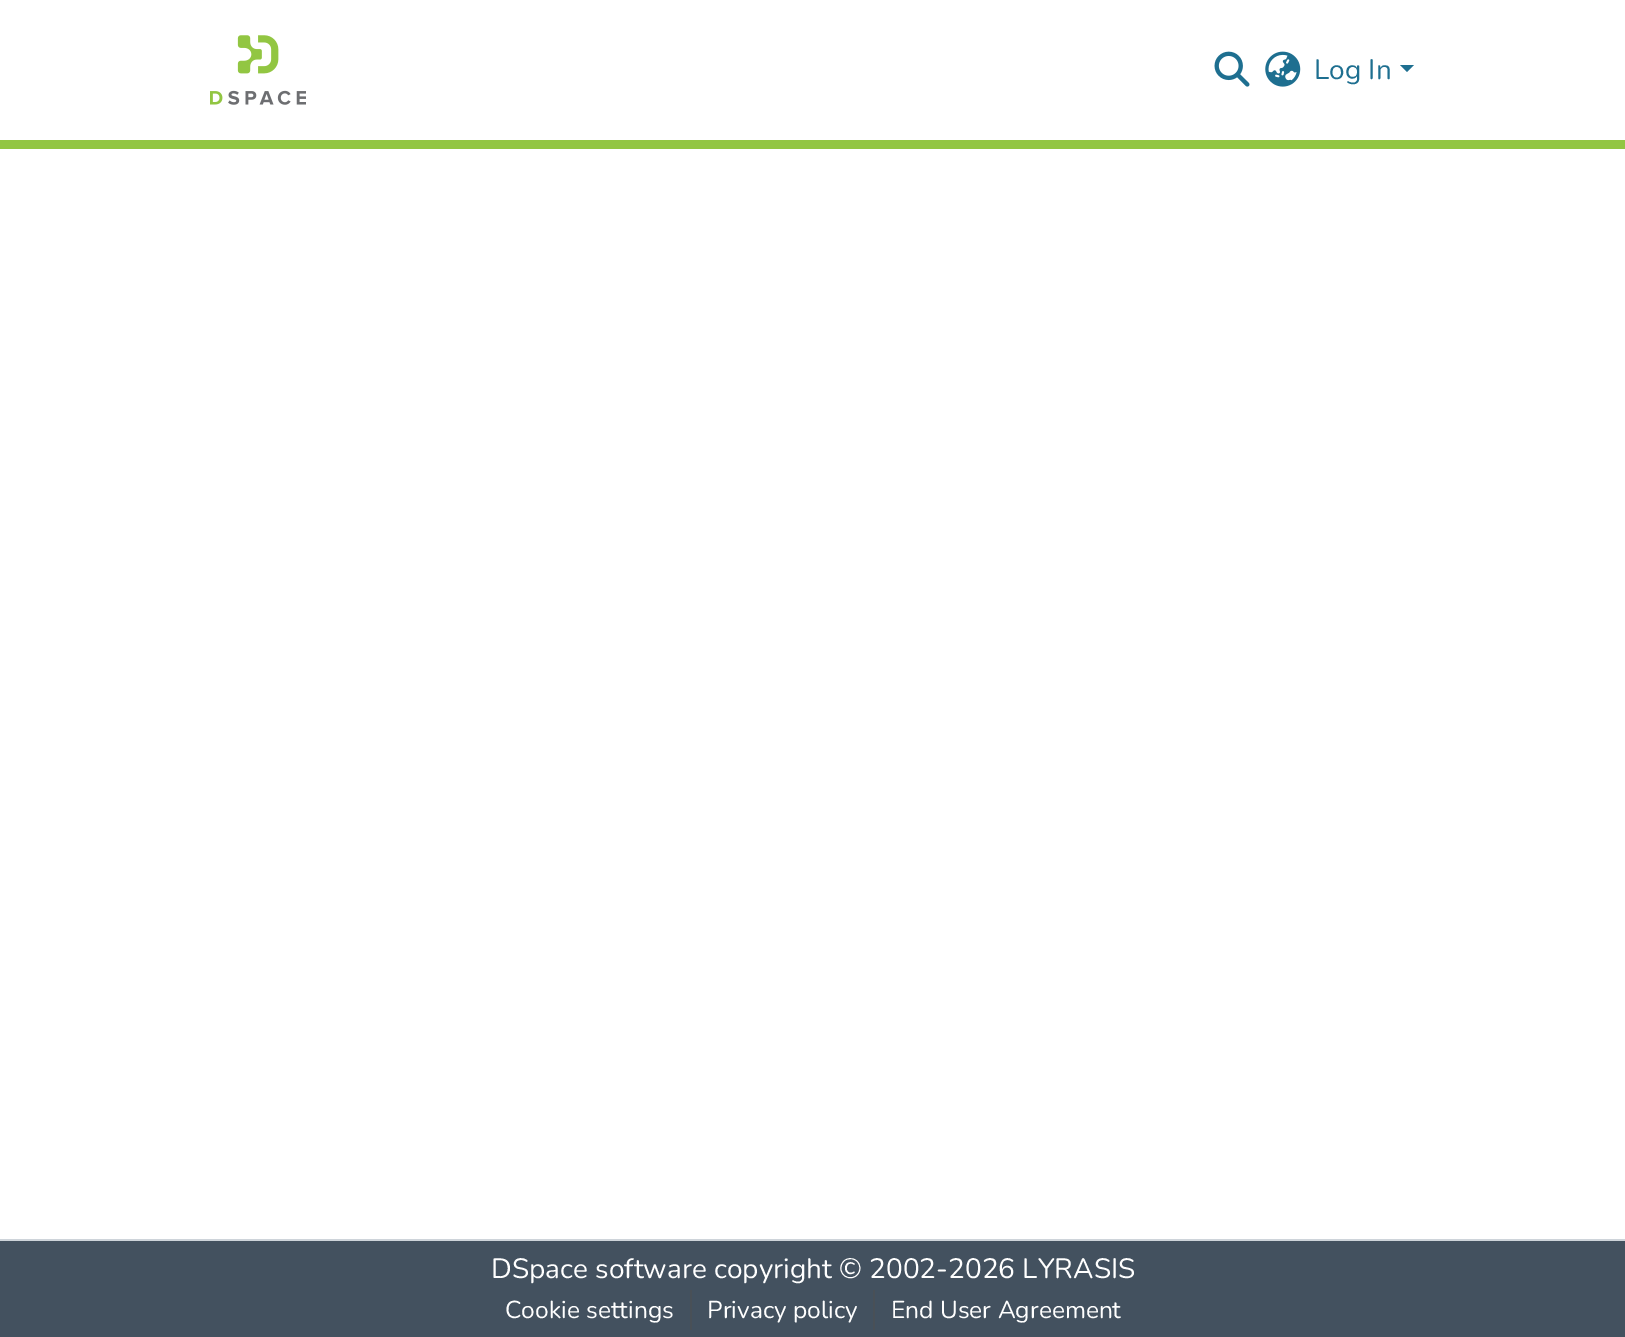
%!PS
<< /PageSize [1625 1337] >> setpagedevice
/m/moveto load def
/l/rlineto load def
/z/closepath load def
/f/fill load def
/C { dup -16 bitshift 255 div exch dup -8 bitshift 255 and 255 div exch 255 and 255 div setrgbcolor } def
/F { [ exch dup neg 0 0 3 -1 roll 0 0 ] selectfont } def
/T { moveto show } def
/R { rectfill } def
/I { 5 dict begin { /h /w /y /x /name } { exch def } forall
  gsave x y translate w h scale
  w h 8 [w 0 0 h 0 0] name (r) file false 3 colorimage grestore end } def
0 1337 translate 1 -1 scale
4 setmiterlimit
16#FFFFFF C
0 0 1625 1337 R
16#92C642 C
0 140 1625 9 R
(1.rgb) 210 35 96 70 I
(2.rgb) 1214 51 36 36 I
(3.rgb) 1265 51 36 36 I
/Nunito-Regular 28 F
16#1E6F90 C
(Log In) 1314 79 T
1400 65 m 14 0 l -7 7 l z f
16#43515F C
0 1241 1625 96 R
16#CED4DA C
0 1239 1625 2 R
16#FFFFFF C
(DSpace software copyright © 2002-2026 LYRASIS) 491 1278 T
/Nunito-Regular 24.5 F
(Cookie settings) 505 1318 T
16#495057 C
690 1290 2 40 R
16#FFFFFF C
(Privacy policy) 707 1318 T
16#495057 C
873 1290 2 40 R
16#FFFFFF C
(End User Agreement) 891 1318 T
showpage
